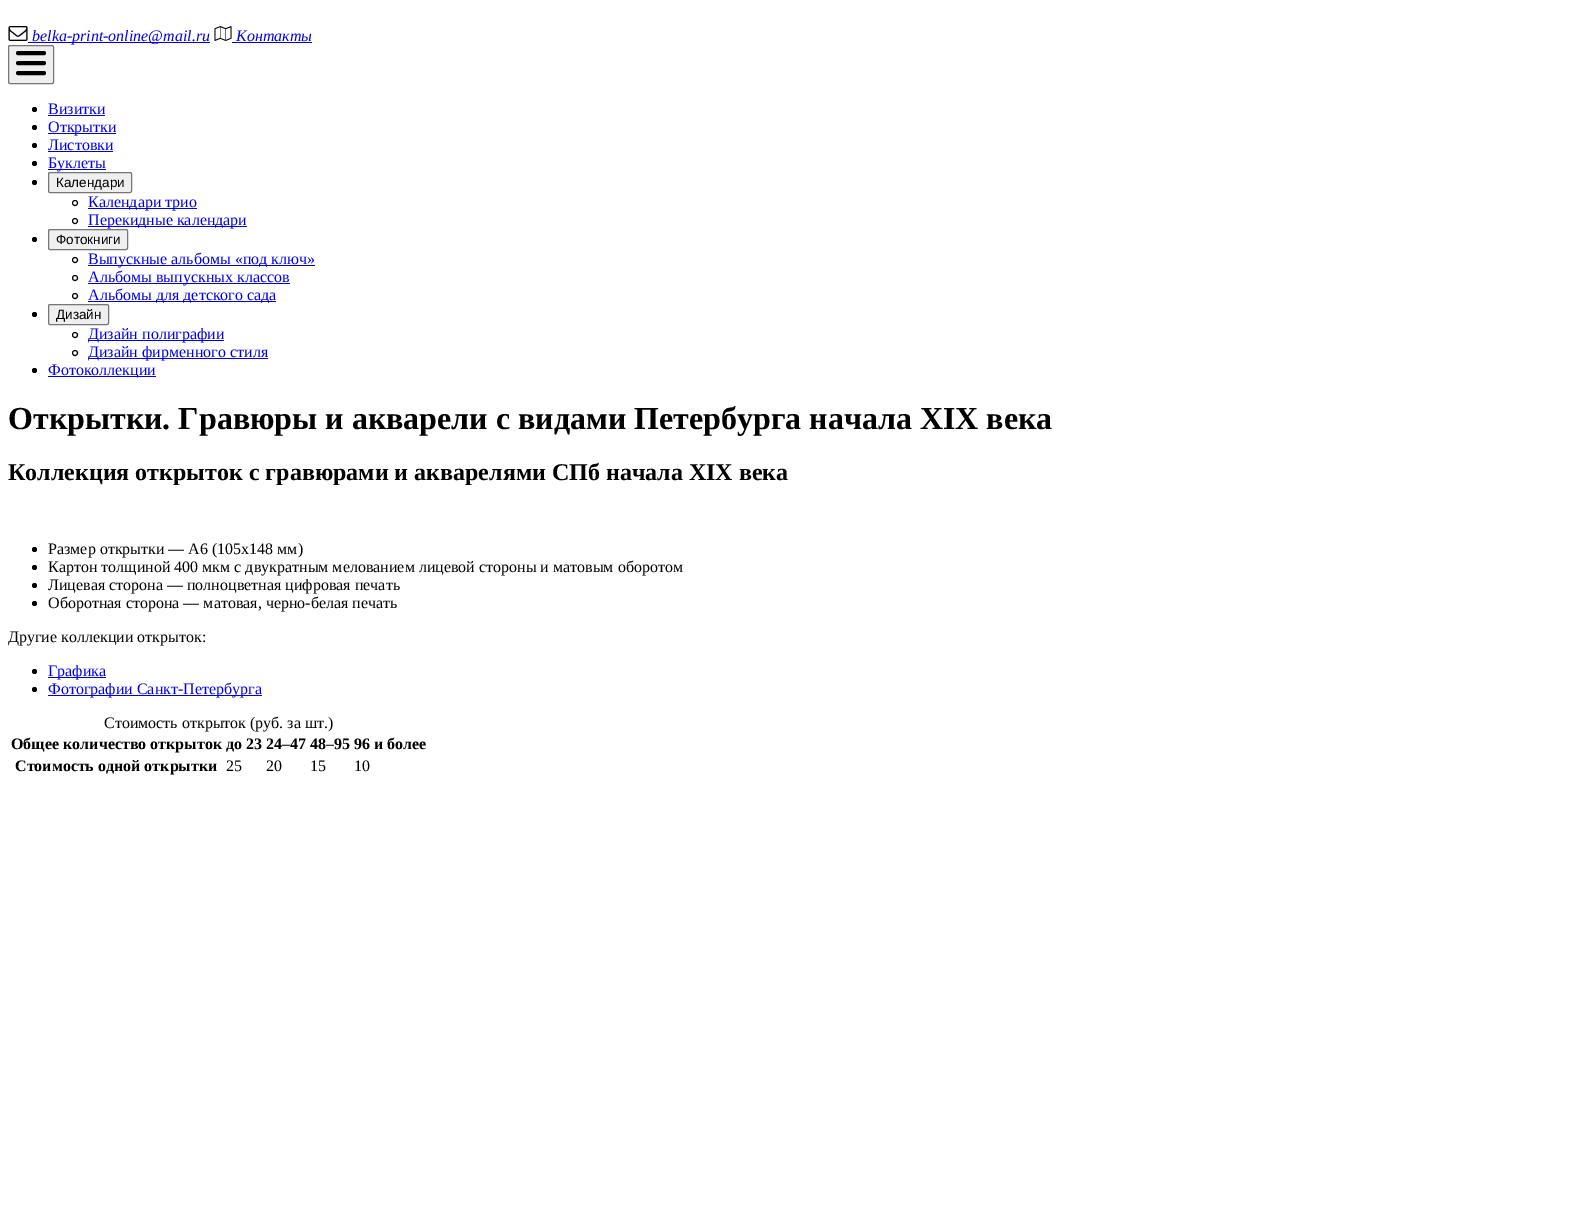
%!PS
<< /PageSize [1594 1219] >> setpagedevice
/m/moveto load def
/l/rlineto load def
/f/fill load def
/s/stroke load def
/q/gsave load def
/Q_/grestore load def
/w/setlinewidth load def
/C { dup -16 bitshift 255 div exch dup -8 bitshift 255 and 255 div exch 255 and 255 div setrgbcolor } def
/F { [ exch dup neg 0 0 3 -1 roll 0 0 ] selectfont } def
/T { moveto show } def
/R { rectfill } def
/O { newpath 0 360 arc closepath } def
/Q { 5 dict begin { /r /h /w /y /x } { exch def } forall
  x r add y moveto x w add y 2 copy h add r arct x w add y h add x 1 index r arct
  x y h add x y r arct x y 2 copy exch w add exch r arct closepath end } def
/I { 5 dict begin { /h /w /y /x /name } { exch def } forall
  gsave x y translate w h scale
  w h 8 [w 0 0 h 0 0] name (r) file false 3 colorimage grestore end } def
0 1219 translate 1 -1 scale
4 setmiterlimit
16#FFFFFF C
0 0 1594 1219 R
(1.rgb) 8 26 20 15 I
16#0000EE C
28 42 182 1 R
/LiberationSerif-Italic 16 F
(belka-print-online@mail.ru) 32 41 T
(2.rgb) 214 26 18 15 I
(Контакты) 236 41 T
232 42 80 1 R
16#EFEFEF C
8.5 45.5 45 38 1.5 Q q f Q_
16#767676 C
s
16#000000 C
4 w
1 setlinecap
18 53 m 26 0 l 18 63 m 26 0 l 18 73 m 26 0 l s
34.5 109.5 2.5 O f
/LiberationSerif-Regular 16 F
16#0000EE C
(Визитки) 48 114 T
48 115 57 1 R
16#000000 C
34.5 127.5 2.5 O f
16#0000EE C
48 133 68 1 R
(Открытки) 48 132 T
16#000000 C
34.5 145.5 2.5 O f
16#0000EE C
(Листовки) 48 150 T
48 151 65 1 R
16#000000 C
34.5 163.5 2.5 O f
16#0000EE C
48 169 58 1 R
(Буклеты) 48 168 T
16#000000 C
34.5 182.5 2.5 O f
16#EFEFEF C
48.5 172.5 83 20 1.5 Q q f Q_
16#767676 C
1 w
0 setlinecap
s
/LiberationSans-Regular 13.5 F
16#000000 C
(Календари) 56 187 T
75 203 2.5 O s
16#0000EE C
88 208 109 1 R
/LiberationSerif-Regular 16 F
(Календари трио) 88 207 T
16#000000 C
75 221 2.5 O s
16#0000EE C
88 226 159 1 R
(Перекидные календари) 88 225 T
16#000000 C
34.5 239.5 2.5 O f
16#EFEFEF C
48.5 229.5 79 20 1.5 Q q f Q_
16#767676 C
s
/LiberationSans-Regular 13.5 F
16#000000 C
(Фотокниги) 56 244 T
75 260 2.5 O s
16#0000EE C
88 265 227 1 R
/LiberationSerif-Regular 16 F
(Выпускные альбомы «под ключ») 88 264 T
16#000000 C
75 278 2.5 O s
16#0000EE C
88 283 202 1 R
(Альбомы выпускных классов) 88 282 T
16#000000 C
75 296 2.5 O s
16#0000EE C
88 301 188 1 R
(Альбомы для детского сада) 88 300 T
16#000000 C
34.5 314.5 2.5 O f
16#EFEFEF C
48.5 304.5 60 20 1.5 Q q f Q_
16#767676 C
s
/LiberationSans-Regular 13.5 F
16#000000 C
(Дизайн) 56 319 T
75 335 2.5 O s
16#0000EE C
88 340 136 1 R
/LiberationSerif-Regular 16 F
(Дизайн полиграфии) 88 339 T
16#000000 C
75 353 2.5 O s
16#0000EE C
88 358 180 1 R
(Дизайн фирменного стиля) 88 357 T
16#000000 C
34.5 370.5 2.5 O f
16#0000EE C
48 376 108 1 R
(Фотоколлекции) 48 375 T
/LiberationSerif-Bold 32 F
16#000000 C
(Открытки. Гравюры и акварели с видами Петербурга начала XIX века) 8 429 T
/LiberationSerif-Bold 24 F
(Коллекция открыток с гравюрами и акварелями СПб начала XIX века) 8 480 T
34.5 549.5 2.5 O f
/LiberationSerif-Regular 16 F
(Размер открытки — А6 \(105х148 мм\)) 48 554 T
34.5 567.5 2.5 O f
(Картон толщиной 400 мкм с двукратным мелованием лицевой стороны и матовым оборотом) 48 572 T
34.5 585.5 2.5 O f
(Лицевая сторона — полноцветная цифровая печать) 48 590 T
34.5 603.5 2.5 O f
(Оборотная сторона — матовая, черно-белая печать) 48 608 T
(Другие коллекции открыток:) 8 642 T
34.5 671.5 2.5 O f
16#0000EE C
48 677 58 1 R
(Графика) 48 676 T
16#000000 C
34.5 689.5 2.5 O f
16#0000EE C
48 695 214 1 R
(Фотографии Санкт-Петербурга) 48 694 T
16#000000 C
(Стоимость открыток \(руб. за шт.\)) 104 728 T
/LiberationSerif-Bold 16 F
(Общее количество открыток до 23 24–47 48–95 96 и более) 11 749 T
(Стоимость одной открытки) 15 771 T
/LiberationSerif-Regular 16 F
(25) 226 771 T
(20) 266 771 T
(15) 310 771 T
(10) 354 771 T
showpage
